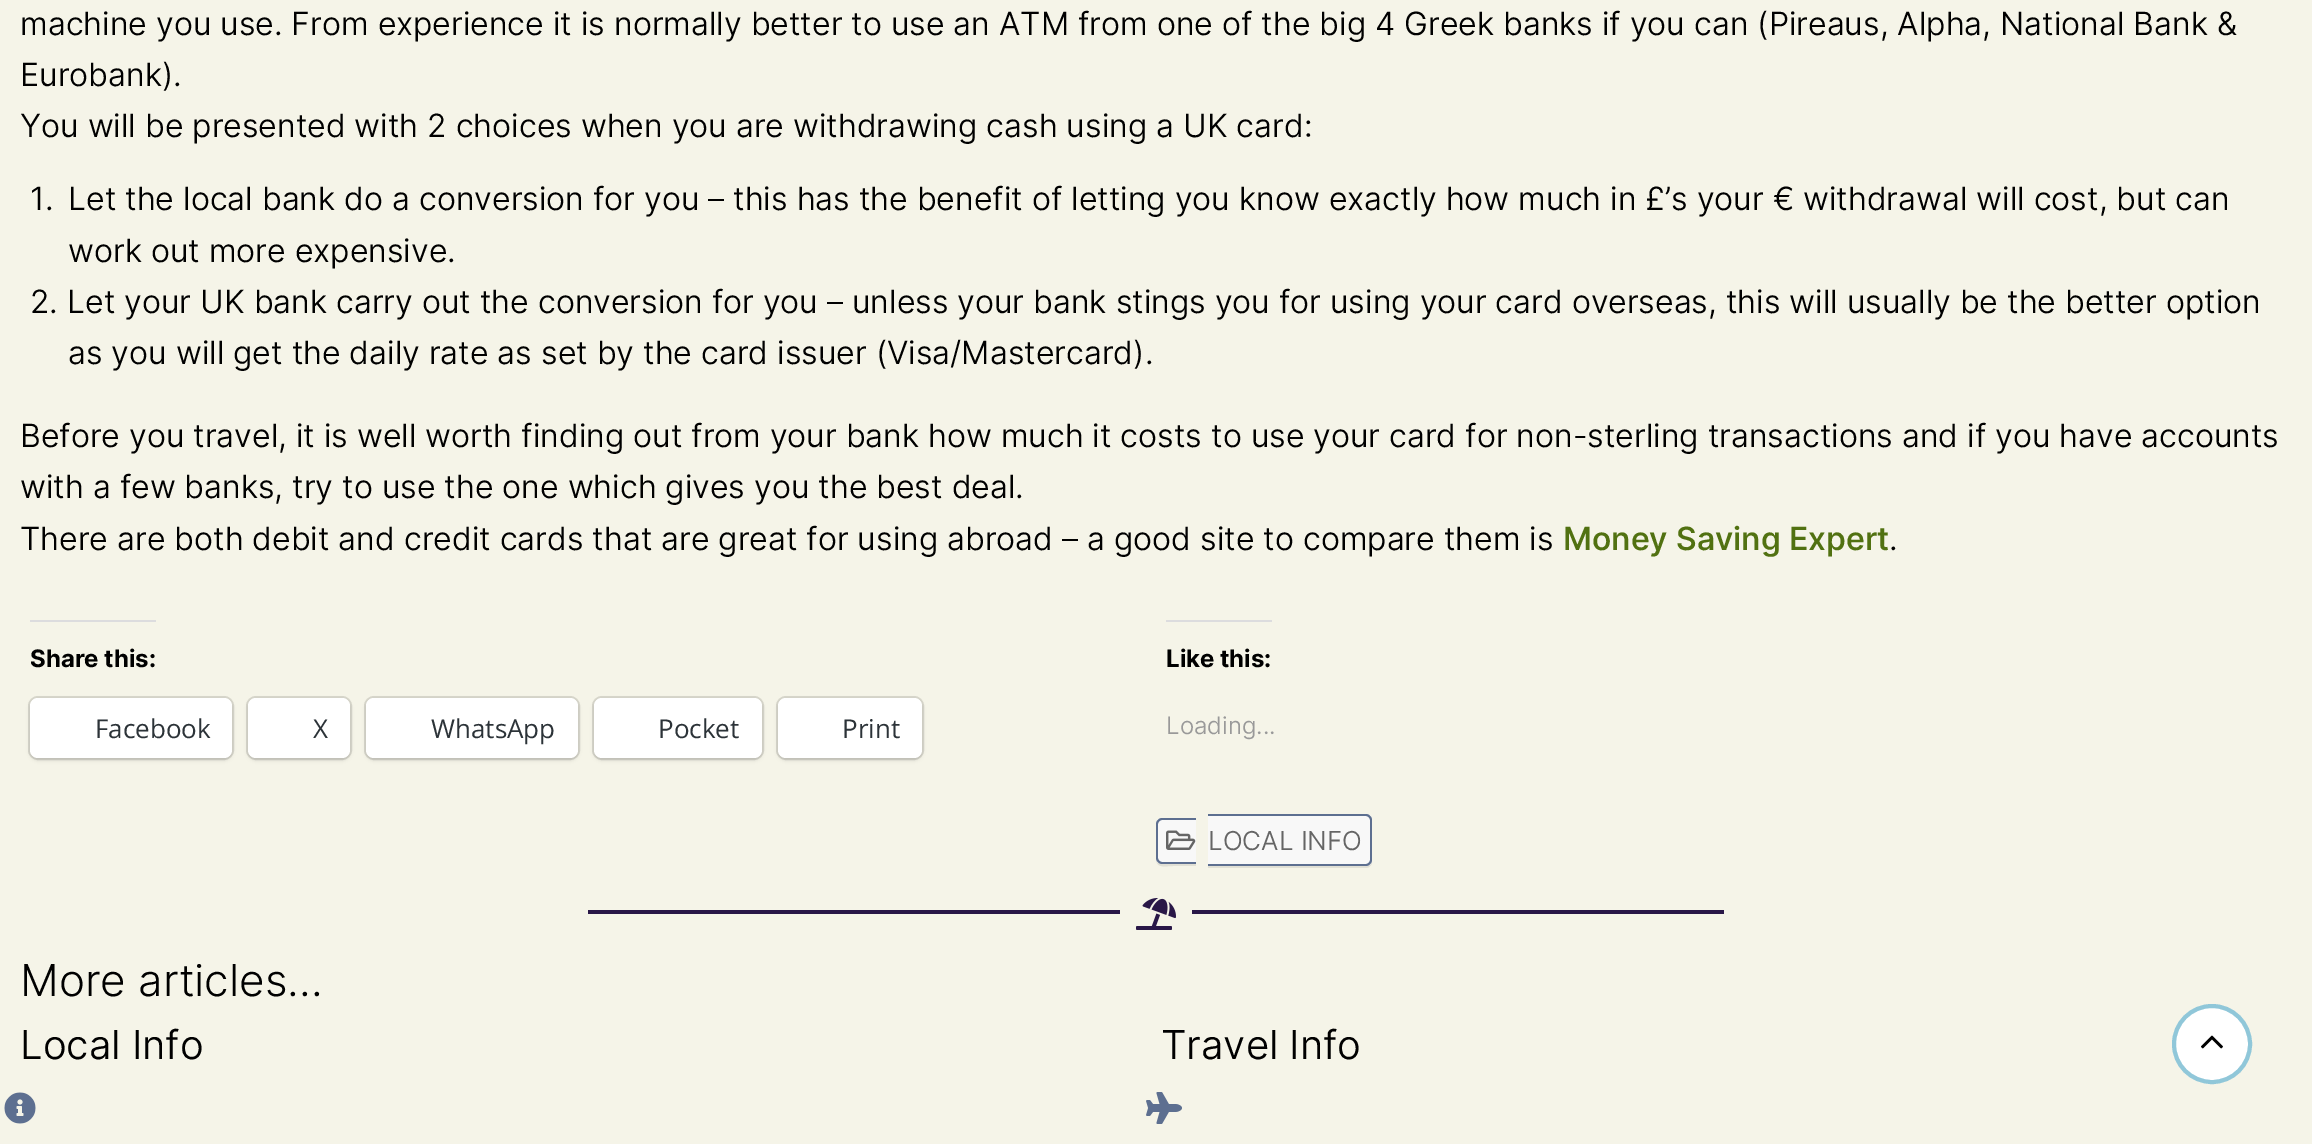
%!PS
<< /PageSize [2312 1144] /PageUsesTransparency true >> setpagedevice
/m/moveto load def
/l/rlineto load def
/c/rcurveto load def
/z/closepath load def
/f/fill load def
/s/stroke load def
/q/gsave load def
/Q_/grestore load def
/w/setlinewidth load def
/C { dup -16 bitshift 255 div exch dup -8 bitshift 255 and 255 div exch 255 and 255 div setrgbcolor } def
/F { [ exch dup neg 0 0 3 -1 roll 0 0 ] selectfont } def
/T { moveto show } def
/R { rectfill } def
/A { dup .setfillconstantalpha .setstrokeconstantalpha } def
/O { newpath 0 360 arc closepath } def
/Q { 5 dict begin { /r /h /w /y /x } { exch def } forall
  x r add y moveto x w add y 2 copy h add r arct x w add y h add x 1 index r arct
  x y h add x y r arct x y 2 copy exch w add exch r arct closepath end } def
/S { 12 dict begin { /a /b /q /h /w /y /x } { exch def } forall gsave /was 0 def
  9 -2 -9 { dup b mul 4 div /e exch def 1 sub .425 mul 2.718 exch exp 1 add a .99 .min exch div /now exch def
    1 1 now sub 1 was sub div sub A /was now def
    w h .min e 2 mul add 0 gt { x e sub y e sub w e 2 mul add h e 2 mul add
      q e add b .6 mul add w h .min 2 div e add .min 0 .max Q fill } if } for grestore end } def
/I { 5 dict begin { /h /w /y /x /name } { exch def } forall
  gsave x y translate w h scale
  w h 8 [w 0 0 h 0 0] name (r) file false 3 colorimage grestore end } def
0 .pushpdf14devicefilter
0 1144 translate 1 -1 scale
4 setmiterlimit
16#F5F4E8 C
0 0 2312 1144 R
/Inter-Light 32 F
16#000000 C
(machine you use. From experience it is normally better to use an ATM from one of the big 4 Greek banks if you can \(Pireaus, Alpha, National Bank &) 20 35 T
(Eurobank\).) 20 86 T
(You will be presented with 2 choices when you are withdrawing cash using a UK card:) 20 137 T
(1.) 30 210 T
(Let the local bank do a conversion for you – this has the benefit of letting you know exactly how much in £’s your € withdrawal will cost, but can) 68 210 T
(work out more expensive.) 68 262 T
(2. Let your UK bank carry out the conversion for you – unless your bank stings you for using your card overseas, this will usually be the better option) 30 313 T
(as you will get the daily rate as set by the card issuer \(Visa/Mastercard\).) 68 364 T
(Before you travel, it is well worth finding out from your bank how much it costs to use your card for non-sterling transactions and if you have accounts) 20 447 T
(with a few banks, try to use the one which gives you the best deal.) 20 498 T
(There are both debit and credit cards that are great for using abroad – a good site to compare them is) 20 550 T
/Inter-Medium 32 F
16#517111 C
(Money Saving Expert) 1563 550 T
/Inter-Light 32 F
16#000000 C
(.) 1889 550 T
16#DCDCDE C
30 620 126 2 R
/Inter-Bold 24 F
16#000000 C
(Share this:) 30 667 T
16#D8D7CC C
2 w
29 697 204 62 9 Q s
16#000000 C
30 700 202 60 8 2 .12 S
16#FFFFFF C
30 698 202 60 8 Q f
/OpenSans-Regular 26 F
16#2C3338 C
(Facebook) 95 738 T
16#D8D7CC C
247 697 104 62 9 Q s
16#000000 C
248 700 102 60 8 2 .12 S
16#FFFFFF C
248 698 102 60 8 Q f
16#2C3338 C
(X) 313 738 T
16#D8D7CC C
365 697 214 62 9 Q s
16#000000 C
366 700 212 60 8 2 .12 S
16#FFFFFF C
366 698 212 60 8 Q f
16#2C3338 C
(WhatsApp) 431 738 T
16#D8D7CC C
593 697 170 62 9 Q s
16#000000 C
594 700 168 60 8 2 .12 S
16#FFFFFF C
594 698 168 60 8 Q f
16#2C3338 C
(Pocket) 658 738 T
16#D8D7CC C
777 697 146 62 9 Q s
16#000000 C
778 700 144 60 8 2 .12 S
16#FFFFFF C
778 698 144 60 8 Q f
16#2C3338 C
(Print) 842 738 T
16#DCDCDE C
1166 620 106 2 R
/Inter-Bold 24 F
16#000000 C
(Like this:) 1166 667 T
/Inter-Light 24 F
16#999999 C
(Loading...) 1166 734 T
16#E1E0D5 C
1156 858 m 0 11 9 8 17 8 c 23 0 l 0 -2 l -34 0 l -3 0 -6 -3 -6 -6 c z f
16#F8F8F8 C
1162 818 m 34 0 l 0 46 l -34 0 l -3.5 0 -6 -2.5 -6 -6 c 0 -34 l 0 -3.5 2.5 -6 6 -6 c z f
16#5D6F90 C
1162 818 m 34 0 l 0 46 l -34 0 l -3 0 -6 -3 -6 -6 c 0 -34 l 0 -3 3 -6 6 -6 c z 1162 820 m 34 0 l 0 42 l -34 0 l -2 0 -4 -2 -4 -4 c 0 -34 l 0 -2 2 -4 4 -4 c z eofill
(1.rgb) 1166 830 30 20 I
16#E1E0D5 C
1208 866 m 0 2 l 158 0 l 3 0 6 -3 6 -6 c 0 -2 l 0 3 -3 6 -6 6 c z f
16#F8F8F8 C
1208 814 m 158 0 l 3.5 0 6 2.5 6 6 c 0 40 l 0 3.5 -2.5 6 -6 6 c -158 0 l z f
16#5D6F90 C
1208 814 m 158 0 l 3 0 6 3 6 6 c 0 40 l 0 3 -3 6 -6 6 c -158 0 l z 1208 816 m 158 0 l 2 0 4 2 4 4 c 0 40 l 0 2 -2 4 -4 4 c -158 0 l z eofill
/Inter-Light 26 F
16#656565 C
(LOCAL INFO) 1208 850 T
16#291747 C
588 910 1136 4 R
16#F5F4E8 C
1120 910 72 4 R
(2.rgb) 1136 898 40 32 I
/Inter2-Light 44 F
16#000000 C
(More articles...) 20 996 T
/Inter-Light 40 F
(Local Info) 20 1059 T
(3.rgb) 4 1092 32 32 I
(Travel Info) 1161 1059 T
(4.rgb) 1146 1092 36 32 I
16#FFFFFF C
2212 1044 38 O q f Q_
16#90C7D9 C
4 w
s
(5.rgb) 2201 1035 22 14 I
.poppdf14devicefilter showpage
